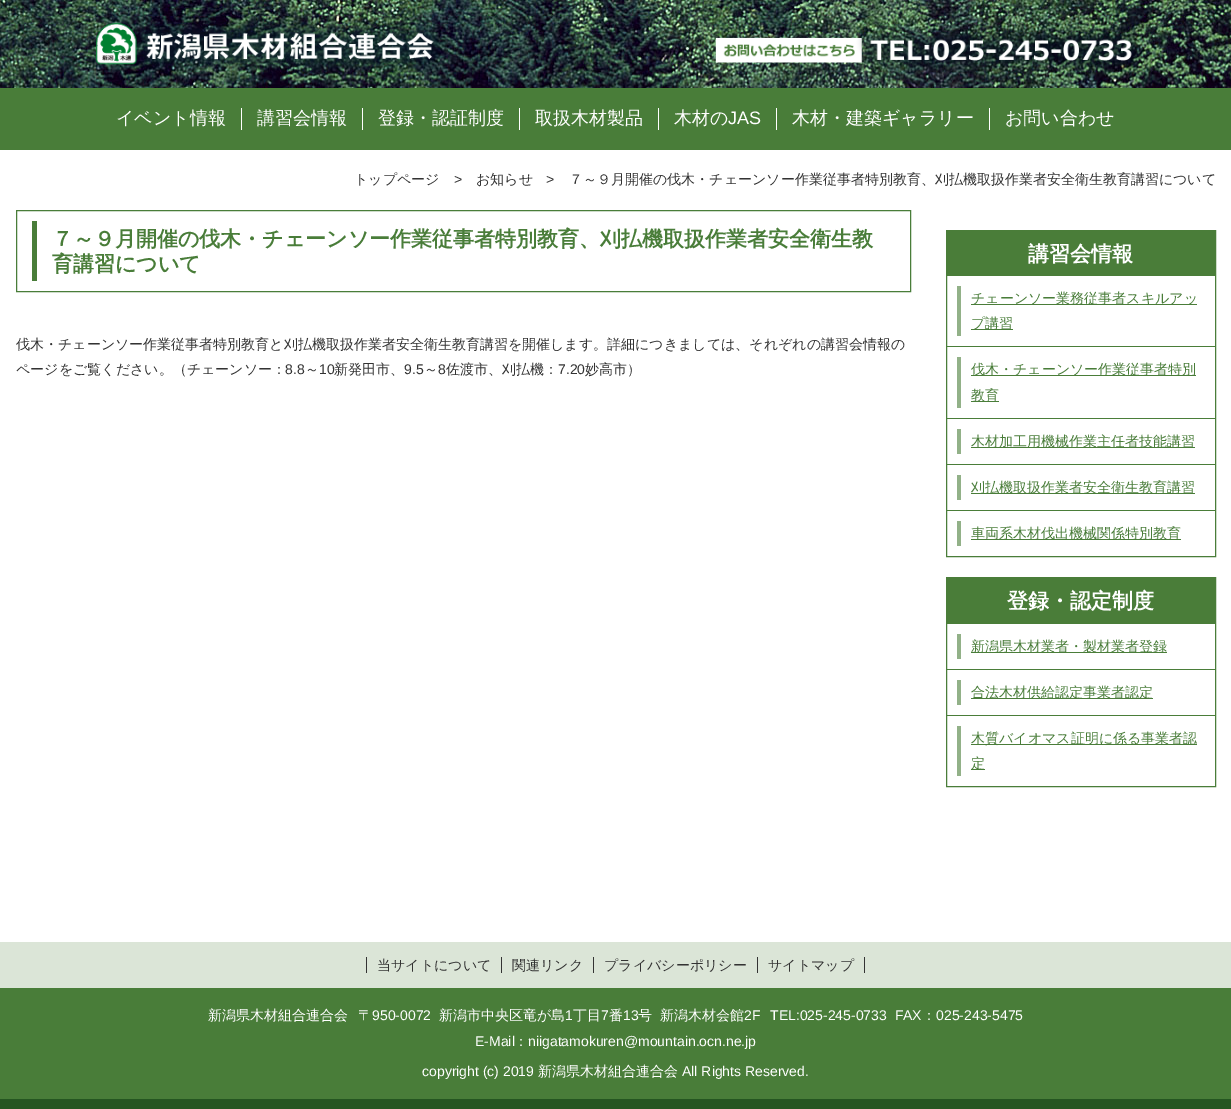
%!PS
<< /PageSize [1231 1109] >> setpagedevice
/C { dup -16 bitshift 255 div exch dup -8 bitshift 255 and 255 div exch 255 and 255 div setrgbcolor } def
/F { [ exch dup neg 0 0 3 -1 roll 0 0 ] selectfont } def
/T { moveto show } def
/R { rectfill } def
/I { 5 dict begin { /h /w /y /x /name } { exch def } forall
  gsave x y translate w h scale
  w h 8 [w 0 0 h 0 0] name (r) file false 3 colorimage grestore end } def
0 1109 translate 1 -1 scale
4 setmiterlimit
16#FFFFFF C
0 0 1231 1109 R
(1.rgb) 0 0 1231 88 I
(2.rgb) 95 20 1049 54 I
16#497D39 C
0 88 1231 62 R
16#FFFFFF C
241 108 1 22 R
/WenQuanYiZenHei-Medium 18 F
(イベント情報) 116 124 T
362 108 1 22 R
(講習会情報) 257 124 T
519 108 1 22 R
(登録・認証制度) 378 124 T
658 108 1 22 R
(取扱木材製品) 535 124 T
776 108 1 22 R
(木材の) 674 124 T
/LiberationSans-Regular 18 F
(JAS) 728 124 T
989 108 1 22 R
/WenQuanYiZenHei-Medium 18 F
(木材・建築ギャラリー) 792 124 T
(お問い合わせ) 1005 124 T
/WenQuanYiZenHei-Medium 14 F
16#333333 C
(トップページ) 354 184 T
/LiberationSans-Regular 14 F
(>) 454 184 T
/WenQuanYiZenHei-Medium 14 F
(お知らせ) 476 184 T
/LiberationSans-Regular 14 F
(>) 546 184 T
/WenQuanYiZenHei-Medium 14 F
(７～９月開催の伐木・チェーンソー作業従事者特別教育、刈払機取扱作業者安全衛生教育講習について) 569 184 T
16#497D39 C
16.5 210.5 894 81 rectstroke
32 221 5 60 R
/WenQuanYiZenHei-Bold 21 F
(７～９月開催の伐木・チェーンソー作業従事者特別教育、刈払機取扱作業者安全衛生教) 52 246 T
(育講習について) 52 271 T
/WenQuanYiZenHei-Medium 14 F
16#333333 C
(伐木・チェーンソー作業従事者特別教育と刈払機取扱作業者安全衛生教育講習を開催します。詳細につきましては、それぞれの講習会情報の) 16 349 T
(ページをご覧ください。（チェーンソー：) 16 374 T
/LiberationSans-Regular 14 F
(8.8) 285 374 T
/WenQuanYiZenHei-Medium 14 F
(～) 305 374 T
/LiberationSans-Regular 14 F
(10) 319 374 T
/WenQuanYiZenHei-Medium 14 F
(新発田市、) 334 374 T
/LiberationSans-Regular 14 F
(9.5) 404 374 T
/WenQuanYiZenHei-Medium 14 F
(～) 424 374 T
/LiberationSans-Regular 14 F
(8) 438 374 T
/WenQuanYiZenHei-Medium 14 F
(佐渡市、刈払機：) 446 374 T
/LiberationSans-Regular 14 F
(7.20) 558 374 T
/WenQuanYiZenHei-Medium 14 F
(妙高市）) 585 374 T
16#4A7D39 C
946.5 230.5 269 326 rectstroke
947 231 268 45 R
/WenQuanYiZenHei-Bold 21 F
16#FFFFFF C
(講習会情報) 1028 261 T
16#4A7D39 C
947 346 268 1 R
16#92B188 C
957 286 4 50 R
16#4A7D39 C
971 304 226 1 R
/WenQuanYiZenHei-Medium 14 F
16#497D39 C
(チェーンソー業務従事者スキルアッ) 971 303 T
16#4A7D39 C
971 329 42 1 R
16#497D39 C
(プ講習) 971 328 T
16#4A7D39 C
947 418 268 1 R
16#92B188 C
957 357 4 51 R
16#4A7D39 C
971 375 225 1 R
16#497D39 C
(伐木・チェーンソー作業従事者特別) 971 374 T
16#4A7D39 C
971 401 28 1 R
16#497D39 C
(教育) 971 400 T
16#4A7D39 C
947 464 268 1 R
16#92B188 C
957 429 4 25 R
16#4A7D39 C
971 447 224 1 R
16#497D39 C
(木材加工用機械作業主任者技能講習) 971 446 T
16#4A7D39 C
947 510 268 1 R
16#92B188 C
957 475 4 25 R
16#4A7D39 C
971 493 224 1 R
16#497D39 C
(刈払機取扱作業者安全衛生教育講習) 971 492 T
16#92B188 C
957 521 4 25 R
16#4A7D39 C
971 539 210 1 R
16#497D39 C
(車両系木材伐出機械関係特別教育) 971 538 T
16#4A7D39 C
946.5 577.5 269 209 rectstroke
947 578 268 46 R
/WenQuanYiZenHei-Bold 21 F
16#FFFFFF C
(登録・認定制度) 1007 608 T
16#4A7D39 C
947 669 268 1 R
16#92B188 C
957 634 4 25 R
16#4A7D39 C
971 652 196 1 R
/WenQuanYiZenHei-Medium 14 F
16#497D39 C
(新潟県木材業者・製材業者登録) 971 651 T
16#4A7D39 C
947 715 268 1 R
16#92B188 C
957 680 4 25 R
16#4A7D39 C
971 698 182 1 R
16#497D39 C
(合法木材供給認定事業者認定) 971 697 T
16#92B188 C
957 726 4 50 R
16#4A7D39 C
971 744 226 1 R
16#497D39 C
(木質バイオマス証明に係る事業者認) 971 743 T
16#4A7D39 C
971 769 14 1 R
16#497D39 C
(定) 971 768 T
0 988 1231 111 R
16#255621 C
0 1099 1231 10 R
16#DBE5D7 C
0 942 1231 46 R
16#333333 C
501 957 1 16 R
366 957 1 16 R
(当サイトについて) 377 970 T
593 957 1 16 R
(関連リンク) 512 970 T
757 957 1 16 R
(プライバシーポリシー) 604 970 T
864 957 1 16 R
(サイトマップ) 768 970 T
16#FFFFFF C
(新潟県木材組合連合会) 208 1020 T
(〒) 358 1020 T
/LiberationSans-Regular 14 F
(950-0072) 372 1020 T
/WenQuanYiZenHei-Medium 14 F
(新潟市中央区竜が島) 439 1020 T
/LiberationSans-Regular 14 F
(1) 565 1020 T
/WenQuanYiZenHei-Medium 14 F
(丁目) 573 1020 T
/LiberationSans-Regular 14 F
(7) 601 1020 T
/WenQuanYiZenHei-Medium 14 F
(番) 609 1020 T
/LiberationSans-Regular 14 F
(13) 623 1020 T
/WenQuanYiZenHei-Medium 14 F
(号) 638 1020 T
(新潟木材会館) 660 1020 T
/LiberationSans-Regular 14 F
(2F) 744 1020 T
(TEL:025-245-0733  FAX) 770 1020 T
/WenQuanYiZenHei-Medium 14 F
(：) 922 1020 T
/LiberationSans-Regular 14 F
(025-243-5475) 936 1020 T
(E-Mail) 475 1046 T
/WenQuanYiZenHei-Medium 14 F
(：) 514 1046 T
/LiberationSans-Regular 14 F
(niigatamokuren@mountain.ocn.ne.jp) 528 1046 T
(copyright \(c\) 2019) 422 1076 T
/WenQuanYiZenHei-Medium 14 F
(新潟県木材組合連合会) 538 1076 T
/LiberationSans-Regular 14 F
(All Rights Reserved.) 682 1076 T
showpage
